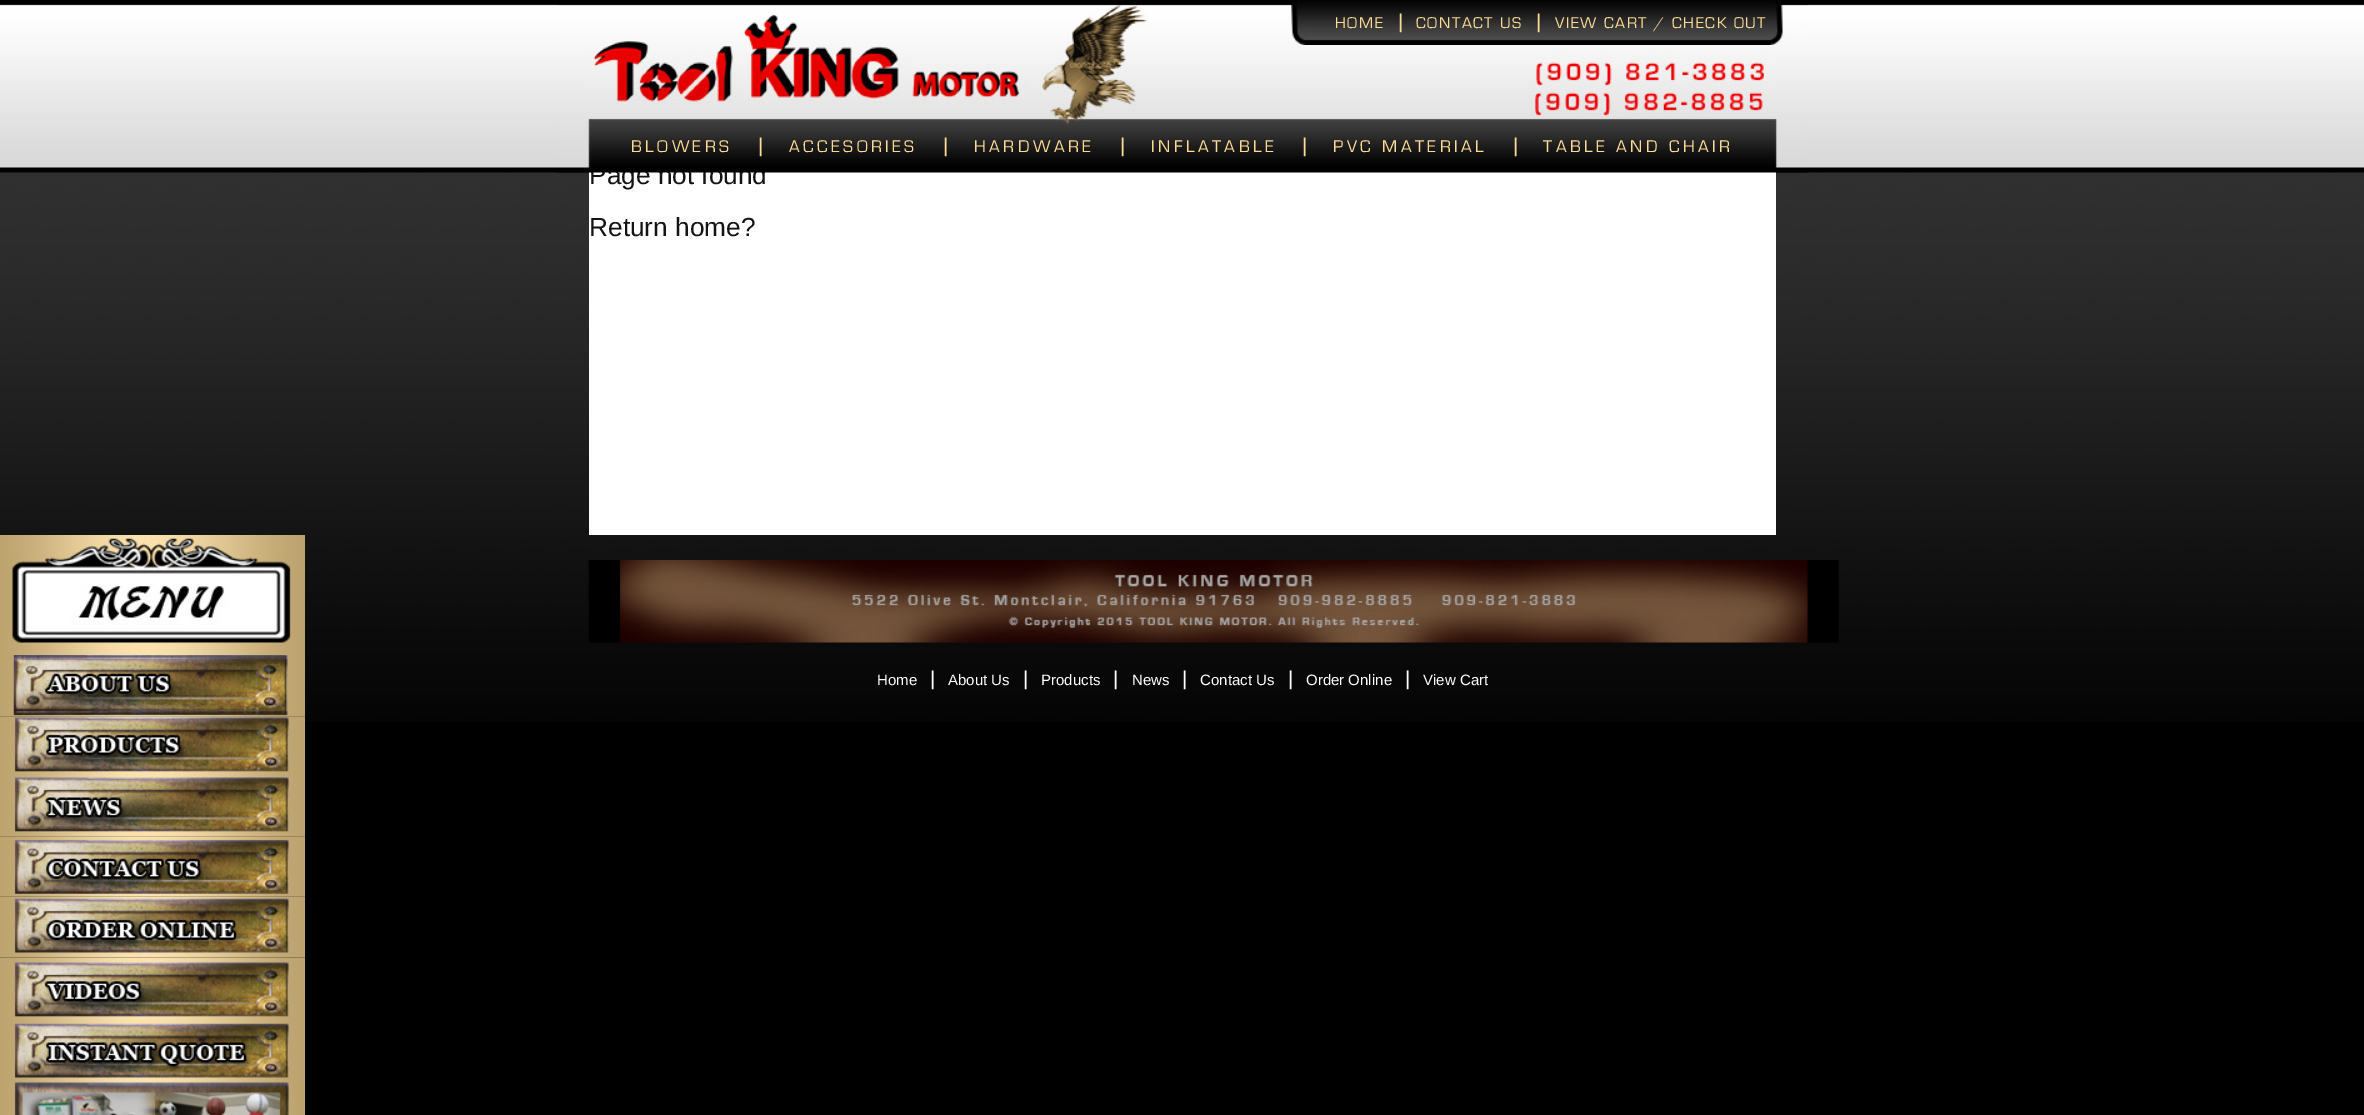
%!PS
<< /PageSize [2364 1115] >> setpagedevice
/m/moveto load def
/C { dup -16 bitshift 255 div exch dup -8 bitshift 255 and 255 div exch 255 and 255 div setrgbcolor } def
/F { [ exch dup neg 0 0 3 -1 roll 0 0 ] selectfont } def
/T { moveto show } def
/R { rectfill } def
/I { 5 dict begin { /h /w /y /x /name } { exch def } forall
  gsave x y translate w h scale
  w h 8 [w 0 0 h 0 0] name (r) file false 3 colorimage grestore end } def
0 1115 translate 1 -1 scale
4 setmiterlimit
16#000000 C
0 0 2364 1115 R
(1.rgb) 0 4 2364 718 I
(2.rgb) 557 0 1251 45 I
/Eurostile-Regular 16.25 F
16#FFDC95 C
1335 28 m 1.6 0 (HOME) ashow
/LiberationSans-Regular 20 F
(|) 1398 28 T
/Eurostile-Regular 16.25 F
1416 28 m 1.6 0 (CONTACT US) ashow
/LiberationSans-Regular 20 F
(|) 1536 28 T
/Eurostile-Regular 16.25 F
1555 28 m 1.6 0 (VIEW CART / CHECK OUT) ashow
16#FFFFFF C
589 172 1187 363 R
/LiberationSans-Regular 26.25 F
16#131313 C
(Page not found) 589 184 T
(4.rgb) 557 118 1251 55 I
(3.rgb) 588 45 1189 74 I
/Eurostile-Regular 17.5 F
16#FFDC95 C
631 152 m 3.5 0 (BLOWERS) ashow
/LiberationSans-Regular 20 F
(|) 758 152 T
/Eurostile-Regular 17.5 F
789 152 m 3.5 0 (ACCESORIES) ashow
/LiberationSans-Regular 20 F
(|) 943 152 T
/Eurostile-Regular 17.5 F
974 152 m 3.5 0 (HARDWARE) ashow
/LiberationSans-Regular 20 F
(|) 1120 152 T
/Eurostile-Regular 17.5 F
1151 152 m 3.5 0 (INFLATABLE) ashow
/LiberationSans-Regular 20 F
(|) 1302 152 T
/Eurostile-Regular 17.5 F
1333 152 m 3.5 0 (PVC MATERIAL) ashow
/LiberationSans-Regular 20 F
(|) 1513 152 T
/Eurostile-Regular 17.5 F
1543 152 m 3.5 0 (TABLE AND CHAIR) ashow
/LiberationSans-Regular 26.25 F
16#131313 C
(Return home?) 589 236 T
(5.rgb) 0 535 305 120 I
(6.rgb) 0 655 305 62 I
(7.rgb) 0 716 305 59 I
(8.rgb) 0 775 305 62 I
(9.rgb) 0 836 305 61 I
(10.rgb) 0 896 305 62 I
(11.rgb) 0 957 305 63 I
(12.rgb) 0 1020 305 60 I
(13.rgb) 0 1080 305 35 I
(14.rgb) 588 560 1251 83 I
/LiberationSans-Regular 15 F
16#FFFFFF C
(Home) 877 685 T
/LiberationSans-Regular 20 F
(|) 930 685 T
/LiberationSans-Regular 15 F
(About Us) 948 685 T
/LiberationSans-Regular 20 F
(|) 1023 685 T
/LiberationSans-Regular 15 F
(Products) 1041 685 T
/LiberationSans-Regular 20 F
(|) 1113 685 T
/LiberationSans-Regular 15 F
(News) 1132 685 T
/LiberationSans-Regular 20 F
(|) 1182 685 T
/LiberationSans-Regular 15 F
(Contact Us) 1200 685 T
/LiberationSans-Regular 20 F
(|) 1288 685 T
/LiberationSans-Regular 15 F
(Order Online) 1306 685 T
/LiberationSans-Regular 20 F
(|) 1405 685 T
/LiberationSans-Regular 15 F
(View Cart) 1423 685 T
showpage
